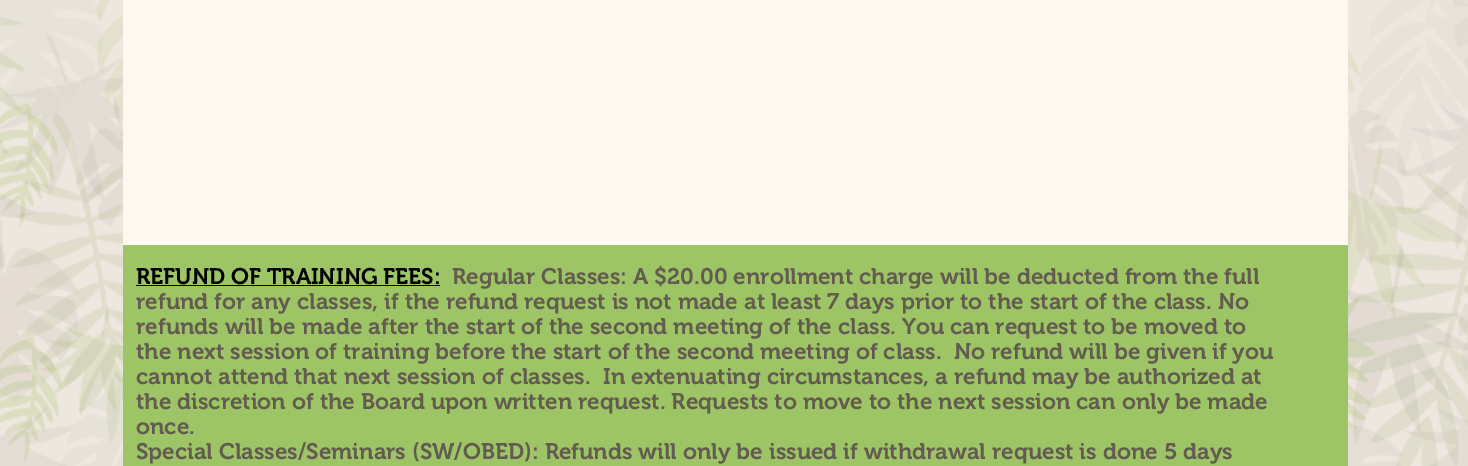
%!PS
<< /PageSize [1468 466] >> setpagedevice
/C { dup -16 bitshift 255 div exch dup -8 bitshift 255 and 255 div exch 255 and 255 div setrgbcolor } def
/F { [ exch dup neg 0 0 3 -1 roll 0 0 ] selectfont } def
/T { moveto show } def
/R { rectfill } def
/I { 5 dict begin { /h /w /y /x /name } { exch def } forall
  gsave x y translate w h scale
  w h 8 [w 0 0 h 0 0] name (r) file false 3 colorimage grestore end } def
0 466 translate 1 -1 scale
4 setmiterlimit
16#EEE7DF C
0 0 1468 466 R
(1.rgb) 0 0 1468 466 I
16#FFF8F0 C
123 0 1225 245 R
16#9DC565 C
123 245 1225 221 R
/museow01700-SemiBold 22.5 F
16#000000 C
(REFUND OF TRAINING FEES:) 136 284 T
136 285 304 1 R
16#635A50 C
(Regular Classes: A $20.00 enrollment charge will be deducted from the full) 452 284 T
(refund for any classes, if the refund request is not made at least 7 days prior to the start of the class. No) 136 309 T
(refunds will be made after the start of the second meeting of the class. You can request to be moved to) 136 334 T
(the next session of training before the start of the second meeting of class.  No refund will be given if you) 136 359 T
(cannot attend that next session of classes.  In extenuating circumstances, a refund may be authorized at) 136 384 T
(the discretion of the Board upon written request. Requests to move to the next session can only be made) 136 409 T
(once.) 136 434 T
(Special Classes/Seminars \(SW/OBED\): Refunds will only be issued if withdrawal request is done 5 days) 136 459 T
showpage
